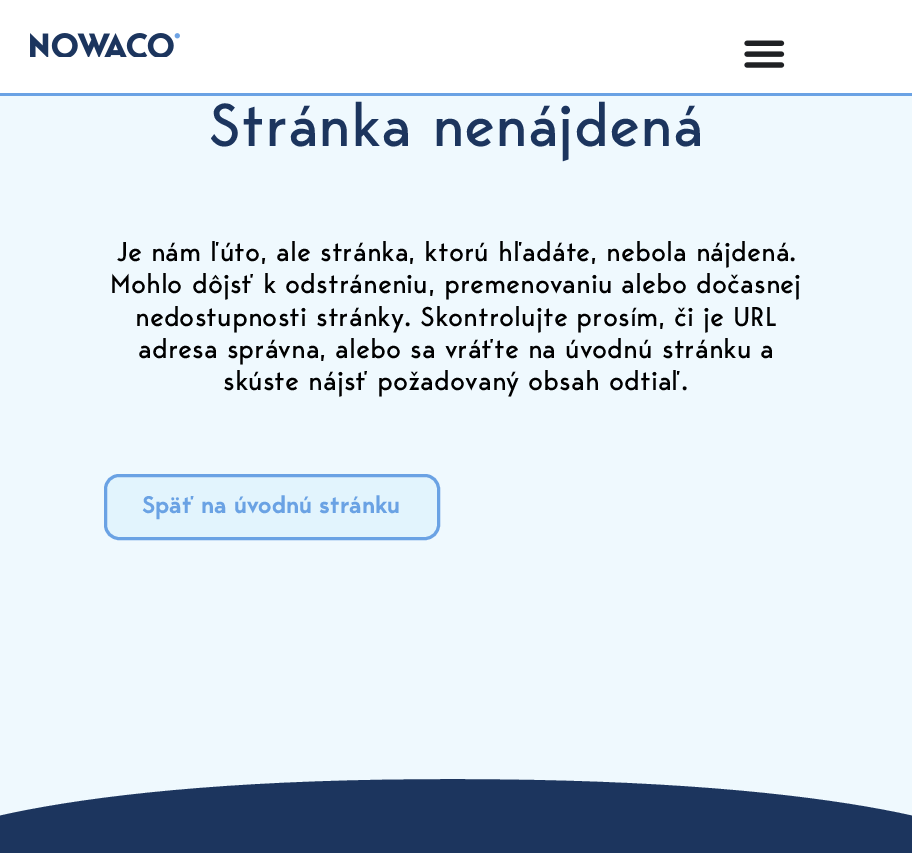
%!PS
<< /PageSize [912 853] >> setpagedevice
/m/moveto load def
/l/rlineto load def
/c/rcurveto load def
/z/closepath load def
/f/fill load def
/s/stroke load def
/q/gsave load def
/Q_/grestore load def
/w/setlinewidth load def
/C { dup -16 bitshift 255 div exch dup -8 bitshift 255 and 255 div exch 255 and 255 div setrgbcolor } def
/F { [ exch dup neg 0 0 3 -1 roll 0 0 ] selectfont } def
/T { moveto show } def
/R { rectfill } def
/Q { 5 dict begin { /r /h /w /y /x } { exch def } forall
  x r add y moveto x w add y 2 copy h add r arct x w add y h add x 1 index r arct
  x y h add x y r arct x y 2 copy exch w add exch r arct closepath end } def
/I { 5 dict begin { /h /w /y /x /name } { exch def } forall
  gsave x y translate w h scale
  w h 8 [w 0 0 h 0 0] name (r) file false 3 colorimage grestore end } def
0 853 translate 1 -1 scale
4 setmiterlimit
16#EFF9FE C
0 0 912 853 R
16#FFFFFF C
0 0 912 93 R
16#6AA2E4 C
0 93 912 3 R
(1.rgb) 30 33 150 24 I
(2.rgb) 744 40 41 28 I
/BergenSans-Regular 60 F
16#1C355E C
(Stránka nenájdená) 208 146 T
/BergenSans-Regular 27 F
16#000000 C
(Je nám ľúto, ale stránka, ktorú hľadáte, nebola nájdená.) 116 261 T
(Mohlo dôjsť k odstráneniu, premenovaniu alebo dočasnej) 110 293 T
(nedostupnosti stránky. Skontrolujte prosím, či je URL) 135 326 T
(adresa správna, alebo sa vráťte na úvodnú stránku a) 138 358 T
(skúste nájsť požadovaný obsah odtiaľ.) 223 390 T
16#E2F4FD C
105.5 475.5 333 63 13.5 Q q f Q_
16#6AA2E4 C
3 w
s
/BergenSans-SemiBold 24 F
(Späť na úvodnú stránku) 142 513 T
16#1C355E C
0 779 912 74 R
q
0 777 912 75 rectclip
16#EFF9FE C
456 779 m 409 0 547 57 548 72 c 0 -75 l -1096 0 l 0 75 l 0 -14 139 -73 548 -72 c z f
Q_
showpage
